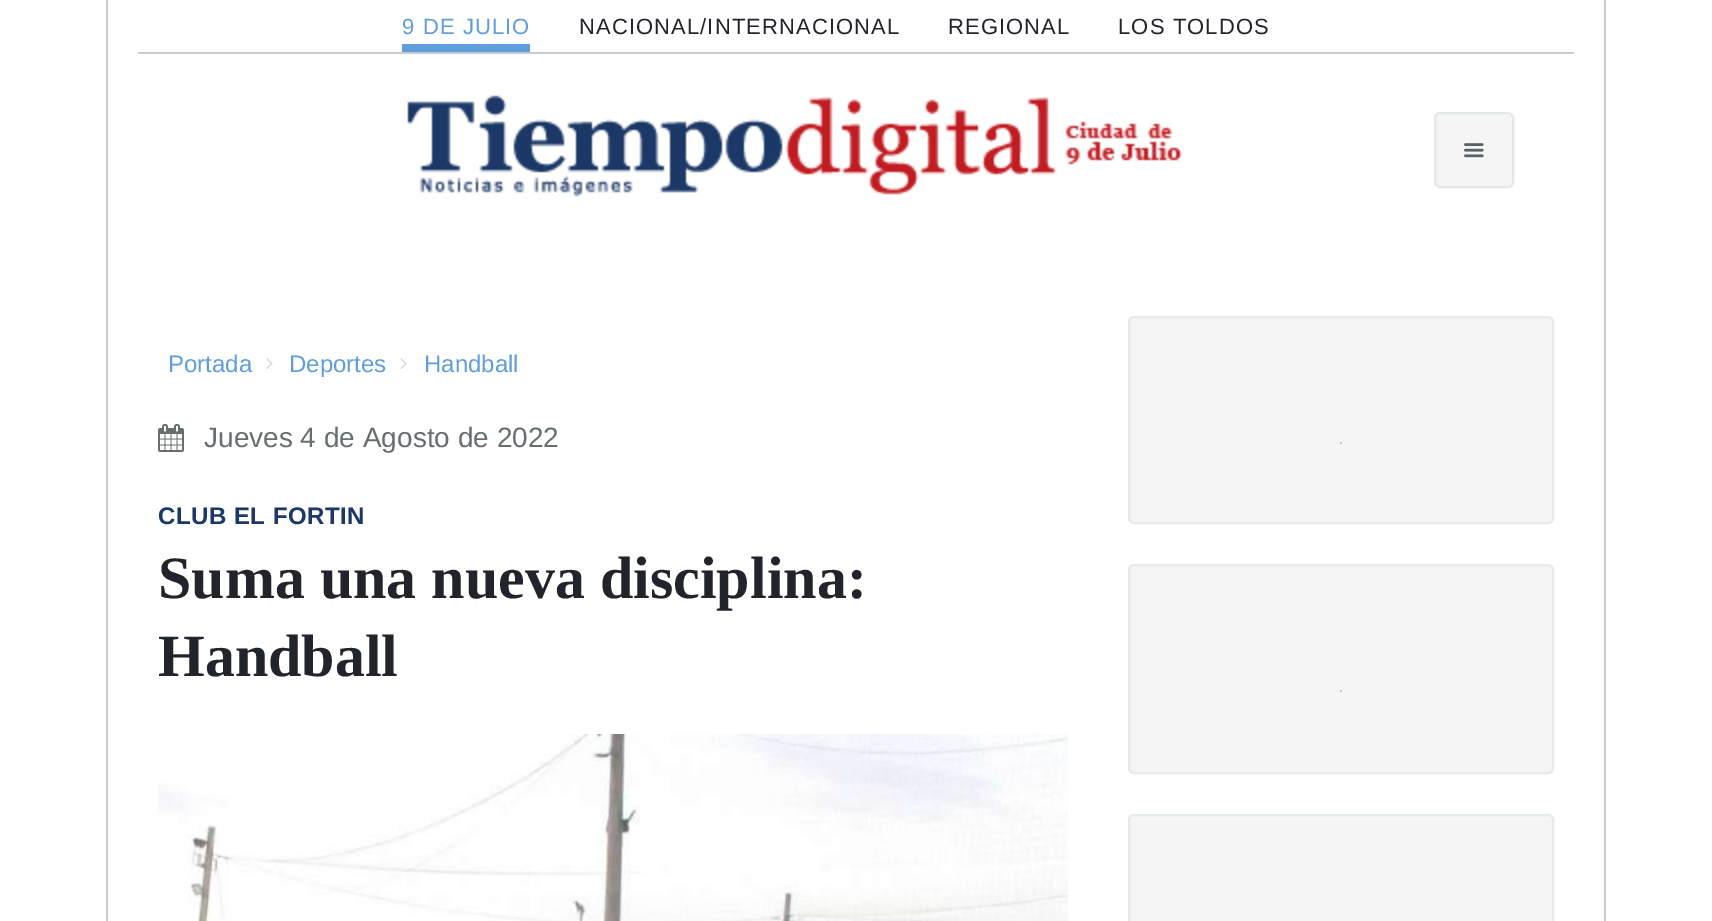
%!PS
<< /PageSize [1712 921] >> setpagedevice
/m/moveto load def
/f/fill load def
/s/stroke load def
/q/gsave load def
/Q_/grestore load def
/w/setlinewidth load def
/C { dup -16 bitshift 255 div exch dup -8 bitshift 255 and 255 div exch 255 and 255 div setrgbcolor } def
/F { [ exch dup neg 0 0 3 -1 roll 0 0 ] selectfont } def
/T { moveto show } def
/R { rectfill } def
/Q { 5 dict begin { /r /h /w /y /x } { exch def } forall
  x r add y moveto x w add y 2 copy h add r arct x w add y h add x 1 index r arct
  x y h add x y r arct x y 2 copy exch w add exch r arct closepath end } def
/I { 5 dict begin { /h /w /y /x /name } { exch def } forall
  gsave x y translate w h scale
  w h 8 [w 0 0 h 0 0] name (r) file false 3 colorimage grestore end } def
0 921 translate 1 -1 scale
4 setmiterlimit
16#FFFFFF C
0 0 1712 921 R
/LiberationSans-Regular 22 F
16#609DDB C
402 34 m 1.1 0 (9 DE JULIO) ashow
402 44 128 8 R
16#21252B C
579 34 m 1.1 0 (NACIONAL/INTERNACIONAL) ashow
948 34 m 1.1 0 (REGIONAL) ashow
1118 34 m 1.1 0 (LOS TOLDOS) ashow
16#C5CCD2 C
138 52 1436 2 R
(1.rgb) 407 95 776 102 I
16#F5F5F6 C
1435 113 78 74 5 Q q f Q_
16#E3E9E9 C
2 w
s
(2.rgb) 1464 143 20 15 I
16#C5CCD2 C
1604 0 2 921 R
106 0 2 921 R
/LiberationSans-Regular 24 F
16#609DDB C
(Portada) 168 372 T
(3.rgb) 266 358 7 11 I
(Deportes) 289 372 T
(3.rgb) 400 358 7 11 I
(Handball) 424 372 T
(4.rgb) 158 424 26 28 I
/LiberationSans-Regular 28 F
16#666E70 C
(Jueves 4 de Agosto de 2022) 204 447 T
/LiberationSans-Bold 24 F
16#1C3867 C
158 524 m .5 0 (CLUB EL FORTIN) ashow
/LiberationSerif-Bold 60 F
16#21252B C
(Suma una nueva disciplina:) 158 598 T
(Handball) 158 676 T
(5.rgb) 158 734 910 187 I
16#F5F5F6 C
1129 317 424 206 5 Q q f Q_
16#E5EAEA C
s
16#C3C3C3 C
1340 442 2 2 R
16#F5F5F6 C
1129 565 424 208 5 Q q f Q_
16#E5EAEA C
s
16#C3C3C3 C
1340 690 2 2 R
16#F5F5F6 C
1129 815 424 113 5 Q q f Q_
16#E5EAEA C
s
showpage
